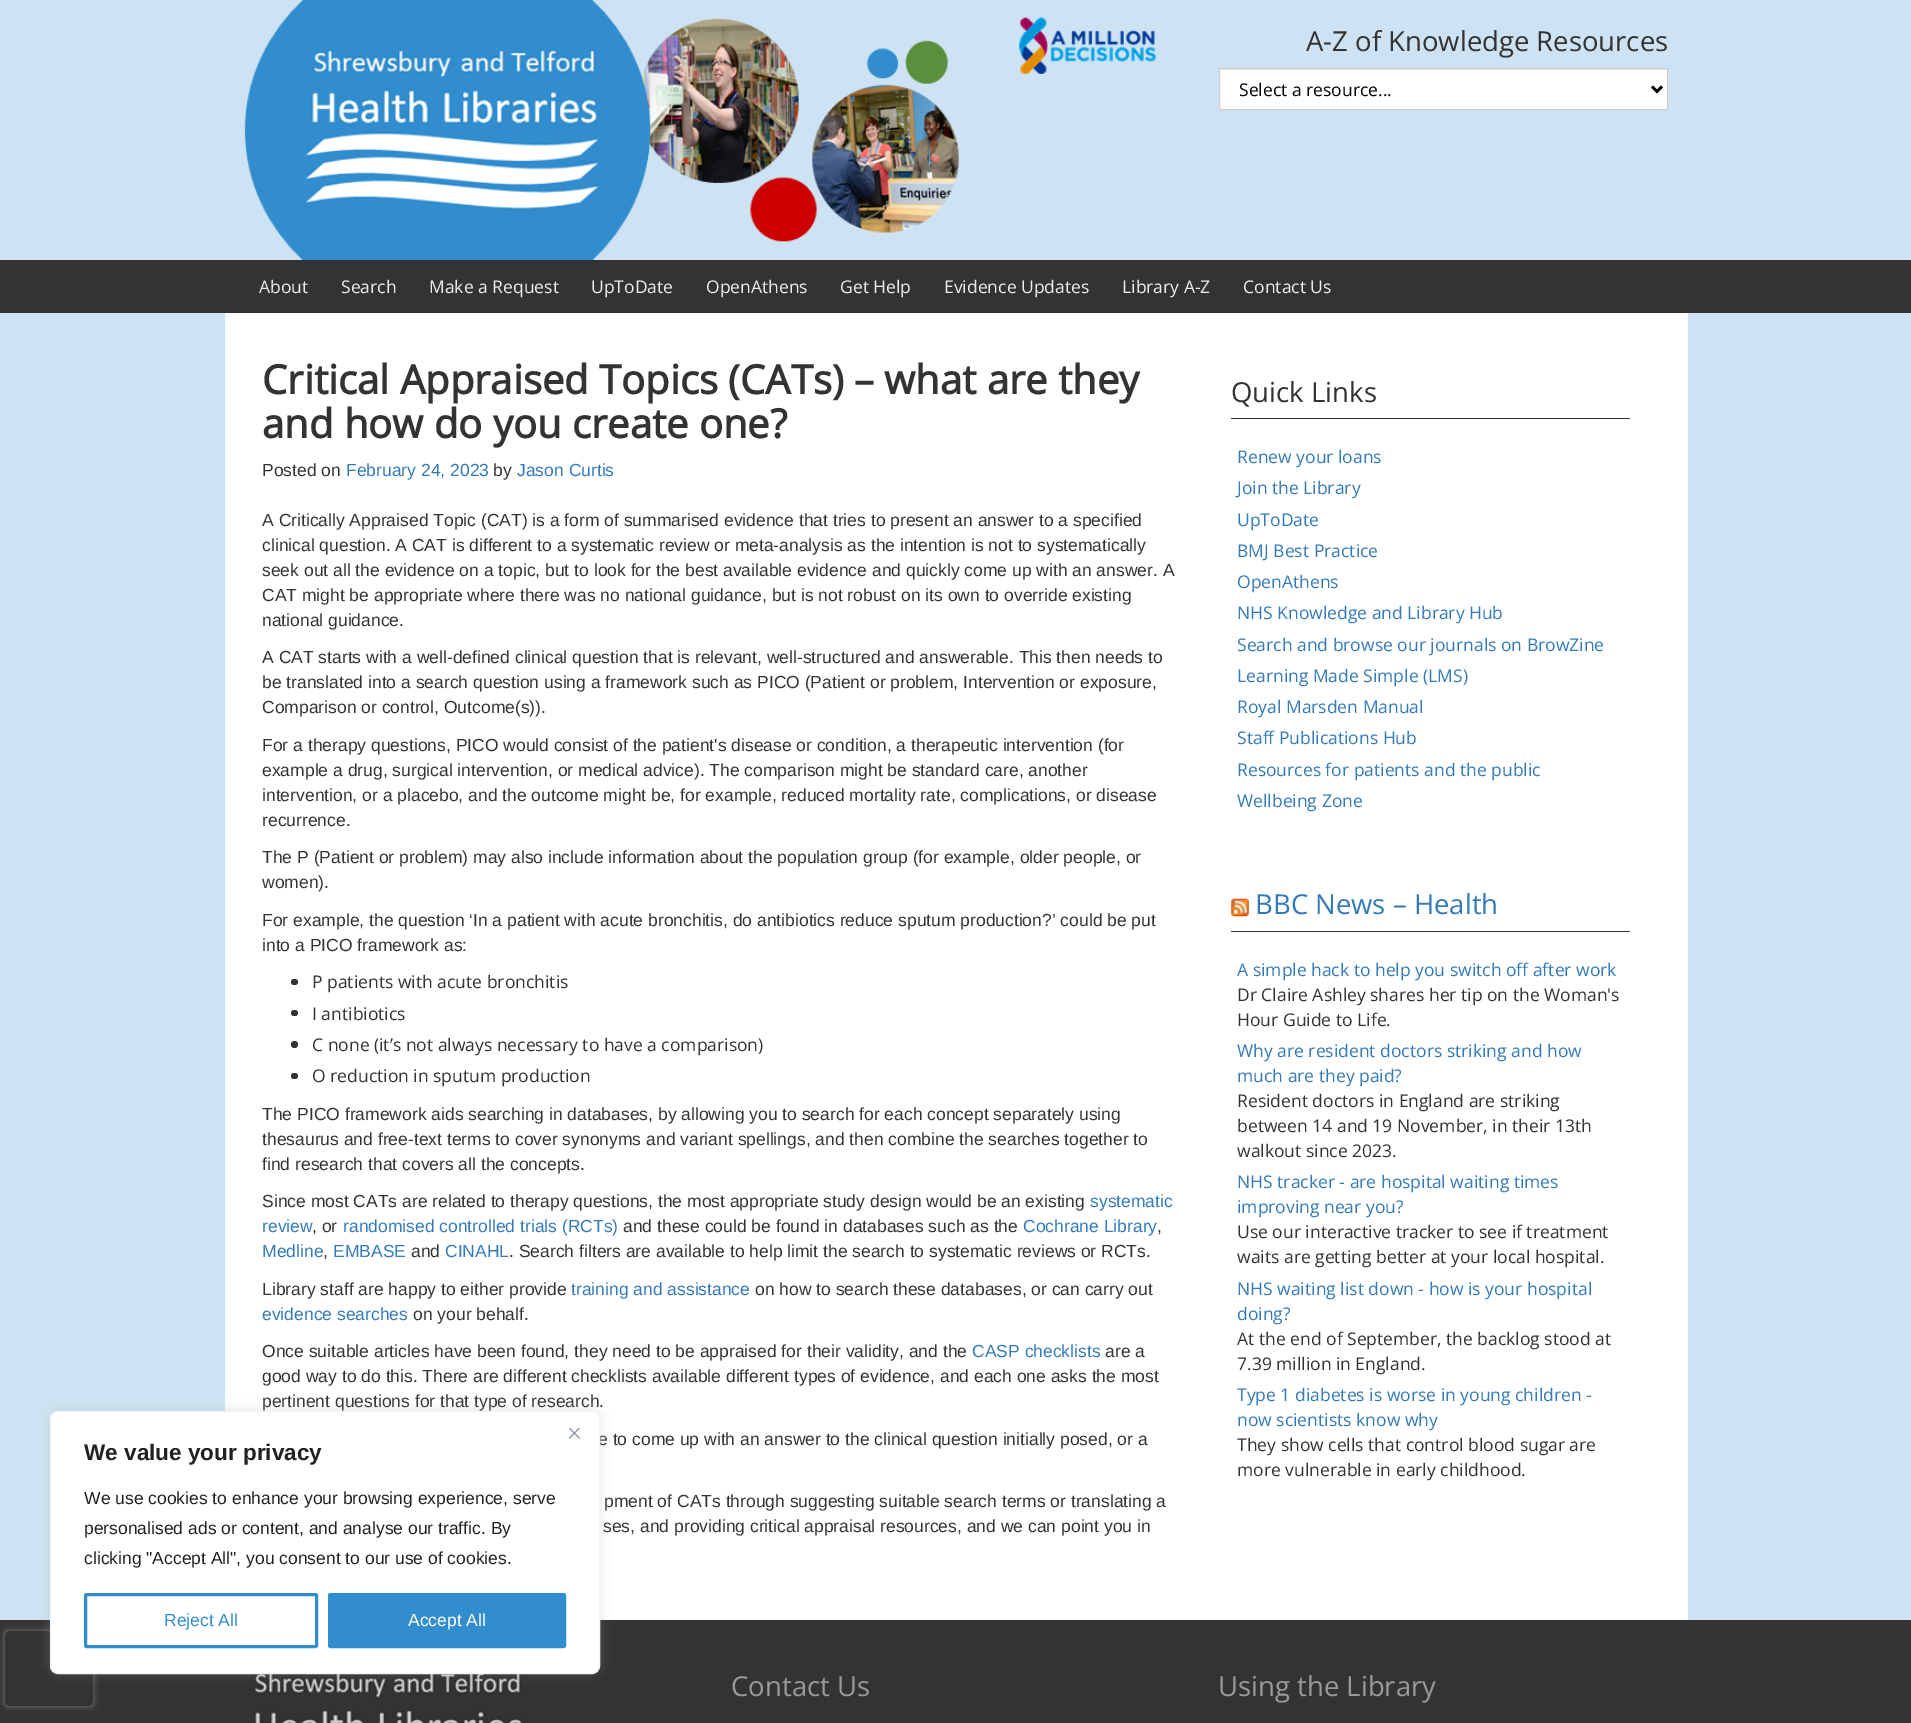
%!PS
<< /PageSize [1911 1723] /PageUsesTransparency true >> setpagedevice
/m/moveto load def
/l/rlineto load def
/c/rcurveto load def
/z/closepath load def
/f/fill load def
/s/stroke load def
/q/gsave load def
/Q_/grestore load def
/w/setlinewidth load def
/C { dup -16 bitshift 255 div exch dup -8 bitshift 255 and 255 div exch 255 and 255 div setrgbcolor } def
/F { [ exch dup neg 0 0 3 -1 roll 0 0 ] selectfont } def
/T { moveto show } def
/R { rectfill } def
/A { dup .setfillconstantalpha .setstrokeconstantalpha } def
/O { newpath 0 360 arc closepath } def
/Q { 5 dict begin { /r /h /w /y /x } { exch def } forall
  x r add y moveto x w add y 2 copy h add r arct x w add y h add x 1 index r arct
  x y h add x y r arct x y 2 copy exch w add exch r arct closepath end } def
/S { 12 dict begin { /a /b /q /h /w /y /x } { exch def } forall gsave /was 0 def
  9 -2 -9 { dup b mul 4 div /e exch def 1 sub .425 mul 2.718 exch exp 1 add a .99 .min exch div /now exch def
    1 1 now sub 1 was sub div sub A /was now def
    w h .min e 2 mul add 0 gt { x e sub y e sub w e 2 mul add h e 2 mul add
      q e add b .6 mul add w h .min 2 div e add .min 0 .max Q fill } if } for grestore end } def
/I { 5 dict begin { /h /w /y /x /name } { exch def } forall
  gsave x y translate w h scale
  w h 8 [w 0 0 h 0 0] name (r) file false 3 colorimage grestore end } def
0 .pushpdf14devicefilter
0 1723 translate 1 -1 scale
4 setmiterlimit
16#CDE3F3 C
0 0 1911 1723 R
(1.rgb) 244 0 913 260 I
/OpenSans-Regular 27.5 F
16#333333 C
(A-Z of Knowledge Resources) 1306 51 T
16#FFFFFF C
1220 69 447 40 R
16#ECECEC C
1220 69 446 1 R
16#CCCCCC C
1219.5 68.5 448 41 rectstroke
16#000000 C
2.5 w
1652 86.5 m 5 5 l 5 -5 l s
/OpenSans-Regular 17.5 F
(Select a resource...) 1239 96 T
16#333333 C
0 260 1911 53 R
16#EEEEEE C
(About) 259 293 T
(Search) 341 293 T
(Make a Request) 429 293 T
(UpToDate) 591 293 T
(OpenAthens) 706 293 T
(Get Help) 840 293 T
(Evidence Updates) 944 293 T
(Library A-Z) 1122 293 T
(Contact Us) 1243 293 T
16#FFFFFF C
225 313 1463 1307 R
/OpenSans-Bold 40 F
16#333333 C
(Critical Appraised Topics \(CATs\) – what are they) 262 394 T
(and how do you create one?) 262 438 T
/LiberationSans-Regular 17.5 F
(Posted on) 262 476 T
16#337AB7 C
(February 24, 2023) 346 476 T
16#333333 C
(by) 493 476 T
16#337AB7 C
(Jason Curtis) 517 476 T
16#333333 C
(A Critically Appraised Topic \(CAT\) is a form of summarised evidence that tries to present an answer to a specified) 262 526 T
(clinical question. A CAT is different to a systematic review or meta-analysis as the intention is not to systematically) 262 551 T
(seek out all the evidence on a topic, but to look for the best available evidence and quickly come up with an answer. A) 262 576 T
(CAT might be appropriate where there was no national guidance, but is not robust on its own to override existing) 262 601 T
(national guidance.) 262 626 T
(A CAT starts with a well-defined clinical question that is relevant, well-structured and answerable. This then needs to) 262 663 T
(be translated into a search question using a framework such as PICO \(Patient or problem, Intervention or exposure,) 262 688 T
(Comparison or control, Outcome\(s\)\).) 262 713 T
(For a therapy questions, PICO would consist of the patient's disease or condition, a therapeutic intervention \(for) 262 751 T
(example a drug, surgical intervention, or medical advice\). The comparison might be standard care, another) 262 776 T
(intervention, or a placebo, and the outcome might be, for example, reduced mortality rate, complications, or disease) 262 801 T
(recurrence.) 262 826 T
(The P \(Patient or problem\) may also include information about the population group \(for example, older people, or) 262 863 T
(women\).) 262 888 T
(For example, the question ‘In a patient with acute bronchitis, do antibiotics reduce sputum production?’ could be put) 262 926 T
(into a PICO framework as:) 262 951 T
291 979 7 6 3 Q f
/OpenSans-Regular 17.5 F
(P patients with acute bronchitis) 312 988 T
291 1010 7 6 3 Q f
(I antibiotics) 312 1020 T
294.5 1044.5 3.5 O f
(C none \(it’s not always necessary to have a comparison\)) 312 1051 T
291 1073 7 6 3 Q f
(O reduction in sputum production) 312 1082 T
/LiberationSans-Regular 17.5 F
(The PICO framework aids searching in databases, by allowing you to search for each concept separately using) 262 1120 T
(thesaurus and free-text terms to cover synonyms and variant spellings, and then combine the searches together to) 262 1145 T
(find research that covers all the concepts.) 262 1170 T
(Since most CATs are related to therapy questions, the most appropriate study design would be an existing) 262 1207 T
16#337AB7 C
(systematic) 1090 1207 T
(review) 262 1232 T
16#333333 C
(, or) 312 1232 T
16#337AB7 C
(randomised controlled trials \(RCTs\)) 343 1232 T
16#333333 C
(and these could be found in databases such as the) 623 1232 T
16#337AB7 C
(Cochrane Library) 1023 1232 T
16#333333 C
(,) 1157 1232 T
16#337AB7 C
(Medline) 262 1257 T
16#333333 C
(,) 323 1257 T
16#337AB7 C
(EMBASE) 333 1257 T
16#333333 C
(and) 411 1257 T
16#337AB7 C
(CINAHL) 445 1257 T
16#333333 C
(. Search filters are available to help limit the search to systematic reviews or RCTs.) 509 1257 T
(Library staff are happy to either provide) 262 1295 T
16#337AB7 C
(training and assistance) 571 1295 T
16#333333 C
(on how to search these databases, or can carry out) 755 1295 T
16#337AB7 C
(evidence searches) 262 1320 T
16#333333 C
(on your behalf.) 413 1320 T
(Once suitable articles have been found, they need to be appraised for their validity, and the) 262 1357 T
16#337AB7 C
(CASP checklists) 972 1357 T
16#333333 C
(are a) 1105 1357 T
(good way to do this. There are different checklists available different types of evidence, and each one asks the most) 262 1382 T
(pertinent questions for that type of research.) 262 1407 T
(e to come up with an answer to the clinical question initially posed, or a) 598 1445 T
(pment of CATs through suggesting suitable search terms or translating a) 604 1507 T
(ses, and providing critical appraisal resources, and we can point you in) 603 1532 T
1231 418 399 1 R
/OpenSans-Regular 27.5 F
(Quick Links) 1231 402 T
/OpenSans-Regular 17.5 F
16#337AB7 C
(Renew your loans) 1237 463 T
(Join the Library) 1237 494 T
(UpToDate) 1237 526 T
(BMJ Best Practice) 1237 557 T
(OpenAthens) 1237 588 T
(NHS Knowledge and Library Hub) 1237 619 T
(Search and browse our journals on BrowZine) 1237 651 T
(Learning Made Simple \(LMS\)) 1237 682 T
(Royal Marsden Manual) 1237 713 T
(Staff Publications Hub) 1237 744 T
(Resources for patients and the public) 1237 776 T
(Wellbeing Zone) 1237 807 T
16#333333 C
1231 931 399 1 R
(2.rgb) 1231 898 18 19 I
/OpenSans-Regular 27.5 F
16#337AB7 C
(BBC News – Health) 1255 914 T
/OpenSans-Regular 17.5 F
(A simple hack to help you switch off after work) 1237 976 T
16#333333 C
(Dr Claire Ashley shares her tip on the Woman's) 1237 1001 T
(Hour Guide to Life.) 1237 1026 T
16#337AB7 C
(Why are resident doctors striking and how) 1237 1057 T
(much are they paid?) 1237 1082 T
16#333333 C
(Resident doctors in England are striking) 1237 1107 T
(between 14 and 19 November, in their 13th) 1237 1132 T
(walkout since 2023.) 1237 1157 T
16#337AB7 C
(NHS tracker - are hospital waiting times) 1237 1188 T
(improving near you?) 1237 1213 T
16#333333 C
(Use our interactive tracker to see if treatment) 1237 1238 T
(waits are getting better at your local hospital.) 1237 1263 T
16#337AB7 C
(NHS waiting list down - how is your hospital) 1237 1295 T
(doing?) 1237 1320 T
16#333333 C
(At the end of September, the backlog stood at) 1237 1345 T
(7.39 million in England.) 1237 1370 T
16#337AB7 C
(Type 1 diabetes is worse in young children -) 1237 1401 T
(now scientists know why) 1237 1426 T
16#333333 C
(They show cells that control blood sugar are) 1237 1451 T
(more vulnerable in early childhood.) 1237 1476 T
0 1620 1911 103 R
(4.rgb) 254 1674 269 49 I
16#ACABAB C
50 1410 550 263 8 6 .3 S
q
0 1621 m 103 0 l 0 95 l -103 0 l z 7.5 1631 m 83 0 l 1.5 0 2.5 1 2.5 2.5 c 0 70 l 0 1.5 -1 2.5 -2.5 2.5 c -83 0 l -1.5 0 -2.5 -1 -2.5 -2.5 c 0 -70 l 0 -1.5 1 -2.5 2.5 -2.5 c z eoclip newpath
16#808080 C
5 1631 88 75 2.5 3 1 S
Q_
16#FFFFFF C
50.5 1411.5 549 262 7.5 Q q f Q_
16#F4F4F4 C
1 w
s
(3.rgb) 569 1428 11 11 I
/LiberationSans-Bold 22.5 F
16#212121 C
(We value your privacy) 84 1460 T
/LiberationSans-Regular 17.5 F
(We use cookies to enhance your browsing experience, serve) 84 1504 T
(personalised ads or content, and analyse our traffic. By) 84 1534 T
(clicking "Accept All", you consent to our use of cookies.) 84 1564 T
16#318DCE C
3 w
85.5 1594.5 231 52 1 Q s
(Reject All) 164 1626 T
329.5 1594.5 235 52 1 Q q f Q_
s
16#FFFFFF C
(Accept All) 408 1626 T
/OpenSans-Regular 27.5 F
16#999999 C
(Contact Us) 731 1696 T
(Using the Library) 1218 1696 T
.poppdf14devicefilter showpage
